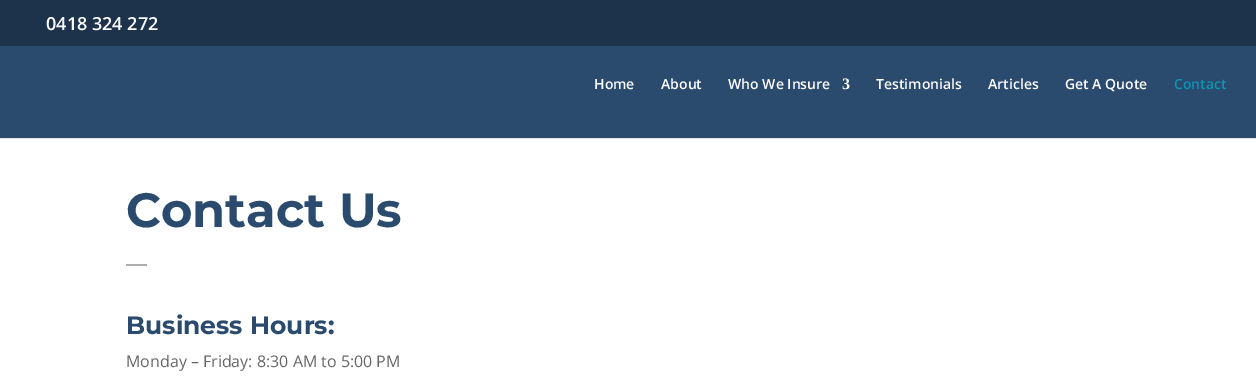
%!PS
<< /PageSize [1256 384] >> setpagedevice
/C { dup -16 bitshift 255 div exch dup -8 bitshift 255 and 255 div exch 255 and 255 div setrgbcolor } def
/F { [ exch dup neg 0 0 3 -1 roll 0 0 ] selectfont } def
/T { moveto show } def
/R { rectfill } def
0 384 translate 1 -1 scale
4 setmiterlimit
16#FFFFFF C
0 0 1256 384 R
16#1D324B C
0 0 1256 46 R
/OpenSans-SemiBold 18 F
16#FFFFFF C
(0418 324 272) 46 30 T
16#E6E6E6 C
0 138 1256 1 R
16#2A4A6E C
0 46 1256 92 R
/OpenSans-SemiBold 14 F
16#FFFFFF C
(Home) 594 89 T
(About) 661 89 T
(Who We Insure) 728 89 T
/LiberationSerif-Bold 16 F
(3) 842 89 T
/OpenSans-SemiBold 14 F
(Testimonials) 876 89 T
(Articles) 988 89 T
(Get A Quote) 1065 89 T
16#0D95B4 C
(Contact) 1174 89 T
/Montserrat-Bold 48 F
16#2A4A6E C
(Contact Us) 126 227 T
/OpenSans-Regular 16 F
16#666666 C
(___) 126 263 T
/Montserrat-Bold 25 F
16#2A4A6E C
(Business Hours:) 126 334 T
/OpenSans-Regular 16 F
16#666666 C
(Monday – Friday: 8:30 AM to 5:00 PM) 126 367 T
showpage
